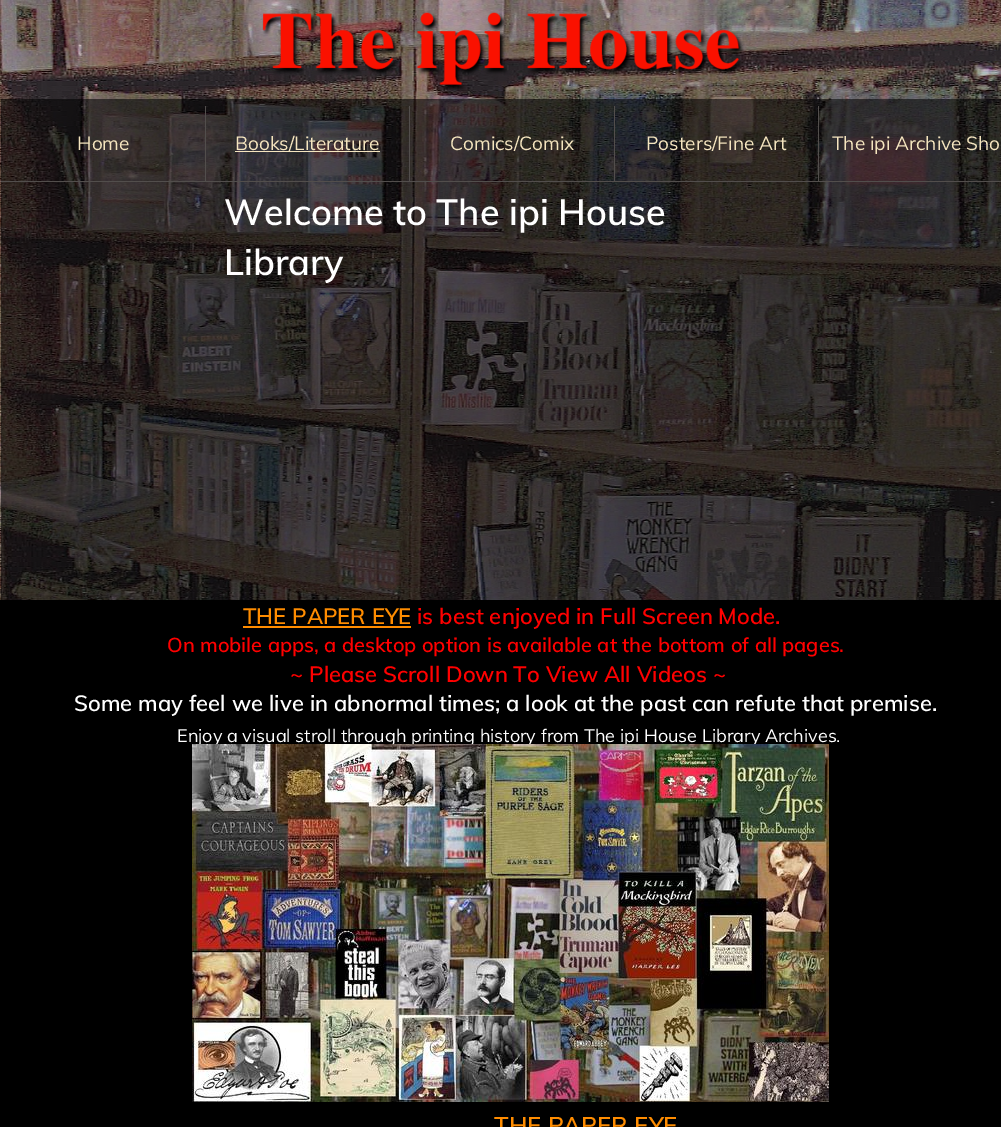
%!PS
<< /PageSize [1001 1127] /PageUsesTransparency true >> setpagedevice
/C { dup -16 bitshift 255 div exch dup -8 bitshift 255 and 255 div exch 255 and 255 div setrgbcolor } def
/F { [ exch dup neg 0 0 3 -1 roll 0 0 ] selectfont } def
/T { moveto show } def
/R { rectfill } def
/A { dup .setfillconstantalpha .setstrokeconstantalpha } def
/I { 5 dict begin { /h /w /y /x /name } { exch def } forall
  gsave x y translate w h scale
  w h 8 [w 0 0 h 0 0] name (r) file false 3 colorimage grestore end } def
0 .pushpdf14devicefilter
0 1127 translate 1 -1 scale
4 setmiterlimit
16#FFFFFF C
0 0 1001 1127 R
(1.rgb) 0 0 1001 600 I
16#000000 C
0 600 1001 527 R
(2.rgb) 262 12 482 79 I
0.57 A
1 99 1000 501 R
1 A
16#524E4C C
205 106 1 76 R
1 181 205 1 R
/Muli-Regular 19 F
16#F5E5BF C
(Home) 77 150 T
16#524E4C C
409 106 1 76 R
206 181 204 1 R
16#F5E5BF C
235 151 145 1 R
(Books/Literature) 235 150 T
16#524E4C C
614 106 1 76 R
410 181 205 1 R
16#F5E5BF C
(Comics/Comix) 450 150 T
16#524E4C C
818 106 1 76 R
615 181 386 1 R
16#F5E5BF C
(Posters/Fine Art) 646 150 T
(The ipi Archive Sho) 832 150 T
/Muli-SemiBold 36 F
16#FFFFFF C
(Welcome to The ipi House) 224 225 T
(Library) 224 275 T
/Muli-SemiBold 22 F
16#FF8C00 C
(THE PAPER EYE) 243 624 T
243 626 168 2 R
16#FF0000 C
(is best enjoyed in Full Screen Mode.) 417 624 T
/Muli-SemiBold 20 F
(On mobile apps, a desktop option is available at the bottom of all pages.) 167 652 T
/Muli-SemiBold 22 F
(~ Please Scroll Down To View All Videos ~) 290 682 T
16#FFFFFF C
(Some may feel we live in abnormal times; a look at the past can refute that premise.) 74 711 T
/Muli-Regular 18 F
(Enjoy a visual stroll through printing history from The ipi House Library Archives.) 177 742 T
(3.rgb) 192 744 637 358 I
/Muli-SemiBold 24 F
16#FF8C00 C
(THE PAPER EYE) 494 1134 T
.poppdf14devicefilter showpage
